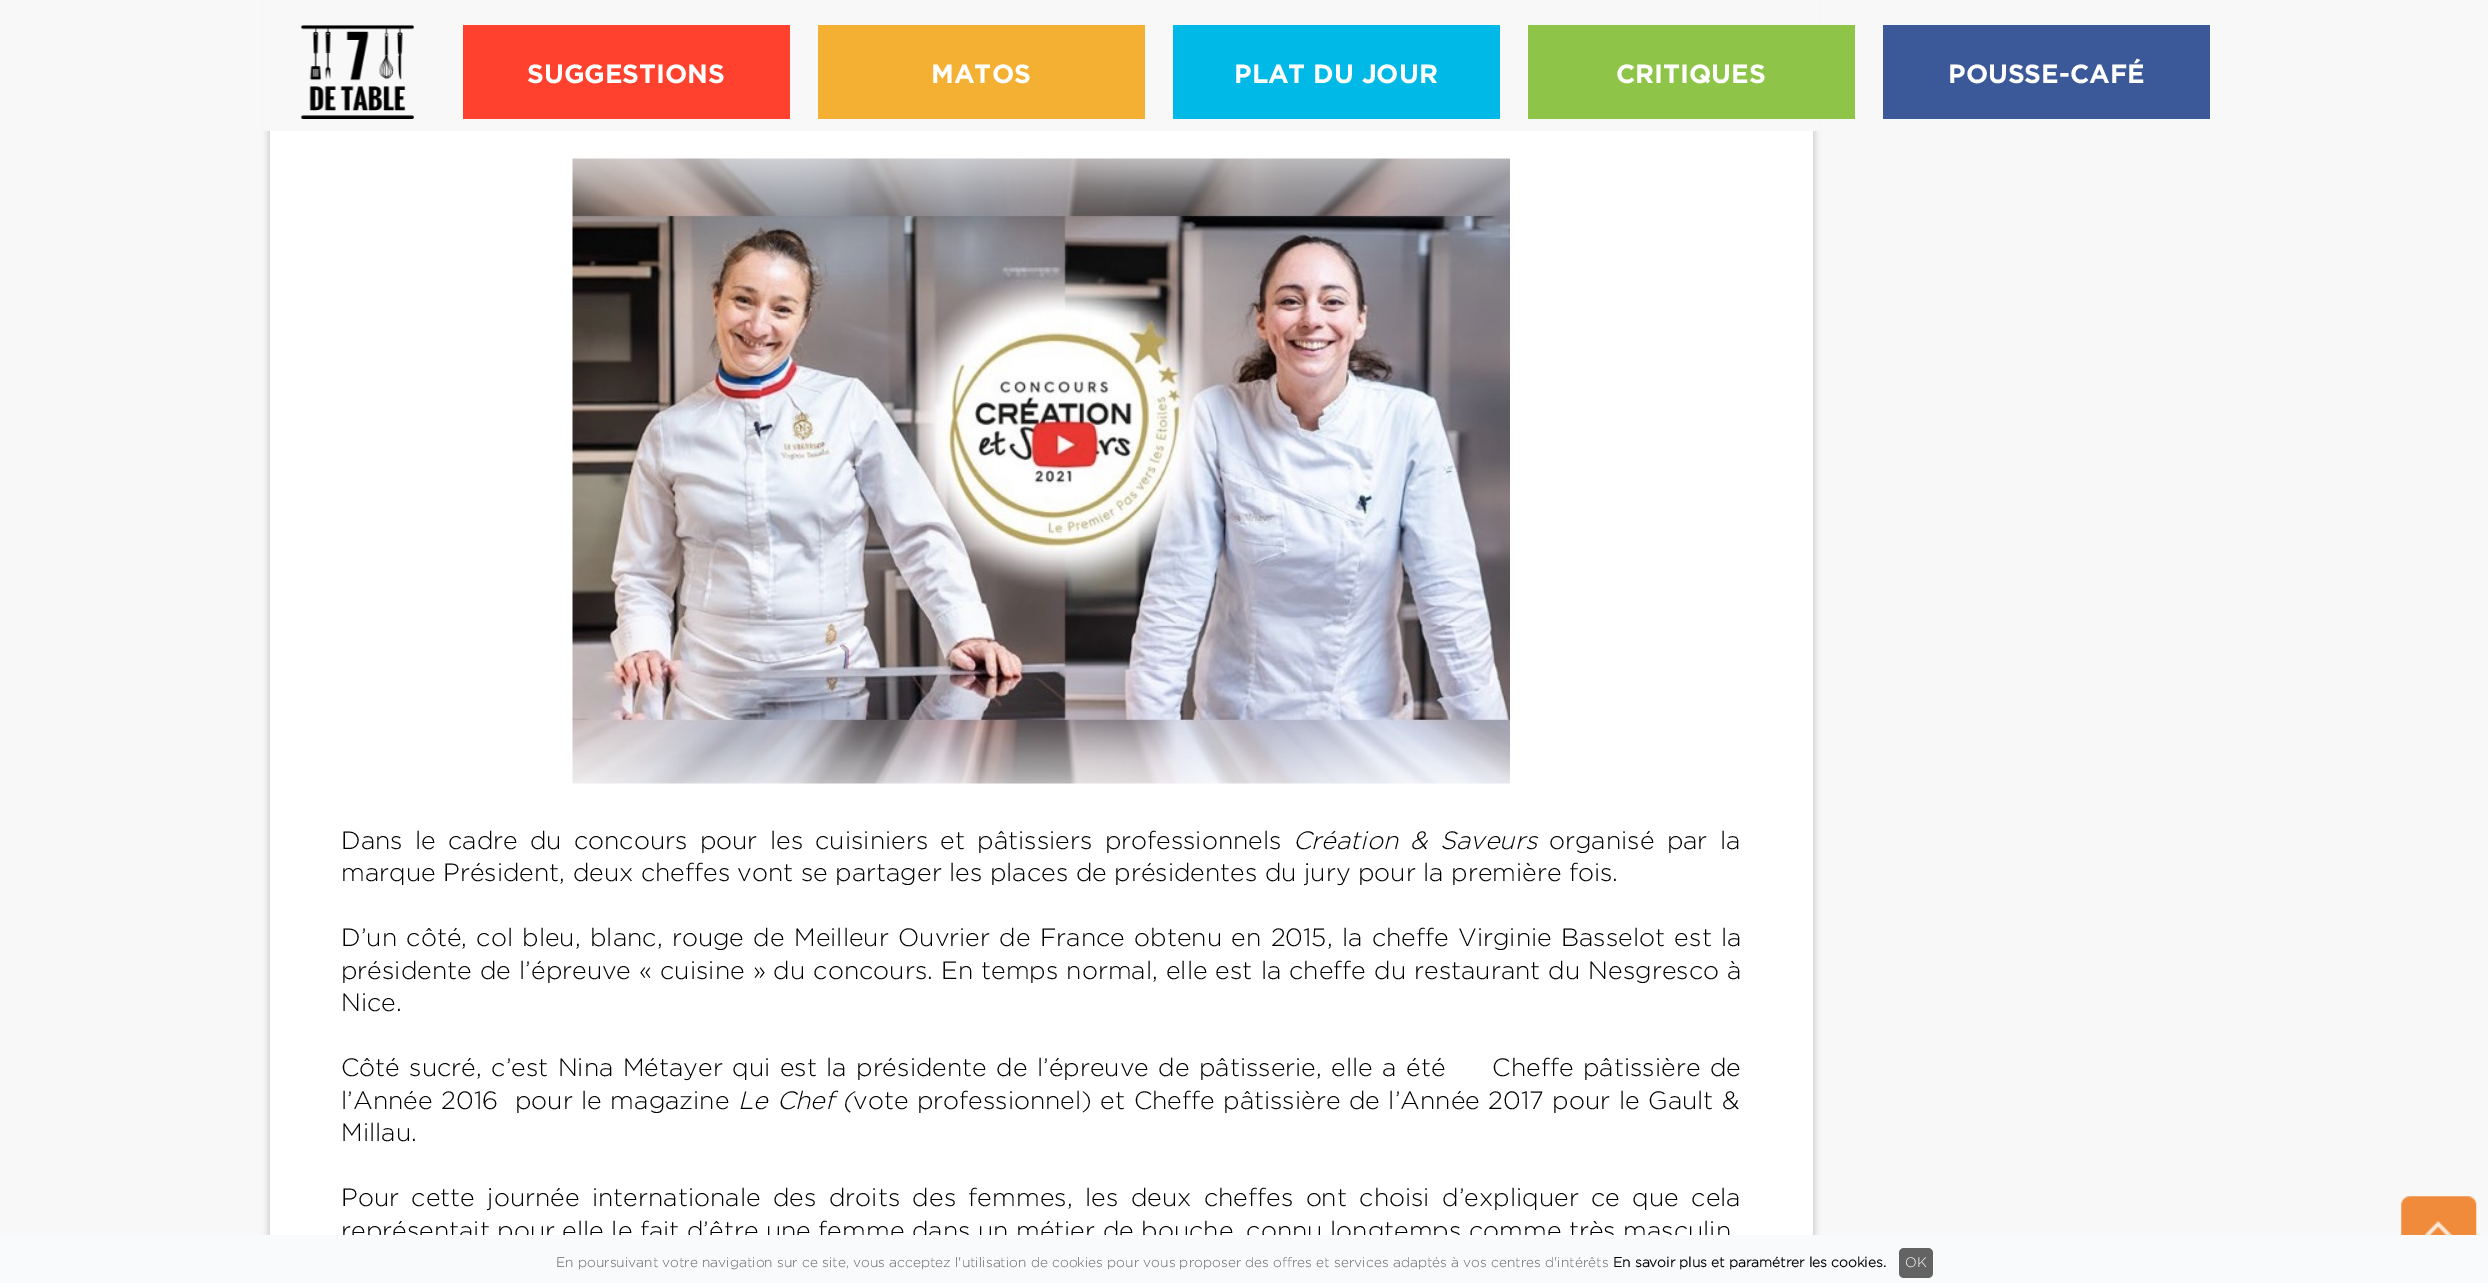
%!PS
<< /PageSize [2488 1283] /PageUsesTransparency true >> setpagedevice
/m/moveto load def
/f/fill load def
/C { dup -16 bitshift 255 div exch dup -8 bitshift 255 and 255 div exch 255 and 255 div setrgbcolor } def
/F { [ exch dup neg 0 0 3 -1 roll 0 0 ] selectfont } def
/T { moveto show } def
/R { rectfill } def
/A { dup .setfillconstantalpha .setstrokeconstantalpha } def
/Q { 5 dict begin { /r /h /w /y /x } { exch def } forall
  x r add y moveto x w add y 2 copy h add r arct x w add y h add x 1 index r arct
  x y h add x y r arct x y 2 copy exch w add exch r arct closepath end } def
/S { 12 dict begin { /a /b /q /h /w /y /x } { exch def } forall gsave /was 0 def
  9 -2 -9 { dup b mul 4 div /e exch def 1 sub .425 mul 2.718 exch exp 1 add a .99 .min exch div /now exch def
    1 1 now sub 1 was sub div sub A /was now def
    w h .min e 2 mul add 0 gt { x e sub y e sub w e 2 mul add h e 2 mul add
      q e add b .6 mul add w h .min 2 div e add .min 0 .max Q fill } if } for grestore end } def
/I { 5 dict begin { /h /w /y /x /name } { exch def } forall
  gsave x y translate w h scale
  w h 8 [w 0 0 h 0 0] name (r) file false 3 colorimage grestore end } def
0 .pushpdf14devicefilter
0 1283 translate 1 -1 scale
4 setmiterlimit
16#F8F8F8 C
0 0 2488 1283 R
16#CFCBCF C
268 -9 1547 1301 0 3 1 S
16#F8F8F8 C
263 0 1557 131 R
(1.rgb) 300 25 114 94 I
16#FF412E C
463 25 327 94 R
/Gotham-Bold 26.25 F
16#FFFFFF C
(SUGGESTIONS) 527 83 T
16#F4B032 C
818 25 327 94 R
16#FFFFFF C
(MATOS) 931 83 T
16#00B9E7 C
1173 25 327 94 R
16#FFFFFF C
(PLAT DU JOUR) 1234 83 T
16#8EC549 C
1528 25 327 94 R
16#FFFFFF C
(CRITIQUES) 1616 83 T
16#3B5998 C
1883 25 327 94 R
16#FFFFFF C
(POUSSE-CAFÉ) 1948 83 T
270 131 1543 1104 R
(2.rgb) 572 158 938 626 I
/Gotham-Light 25 F
16#000000 C
341 849 m 4.75 0 32 (Dans le cadre du concours pour les cuisiniers et pâtissiers professionnels) widthshow
/Gotham-LightItalic 25 F
1293 849 m 4.75 0 32 (Création & Saveurs) widthshow
/Gotham-Light 25 F
1549 849 m 4.75 0 32 (organisé par la) widthshow
(marque Président, deux cheffes vont se partager les places de présidentes du jury pour la première fois.) 341 881 T
341 946 m 1.9 0 32 (D’un côté, col bleu, blanc, rouge de Meilleur Ouvrier de France obtenu en 2015, la cheffe Virginie Basselot est la) widthshow
341 979 m .6 0 32 (présidente de l’épreuve « cuisine » du concours. En temps normal, elle est la cheffe du restaurant du Nesgresco à) widthshow
(Nice.) 341 1011 T
341 1076 m 1.95 0 32 (Côté sucré, c’est Nina Métayer qui est la présidente de l’épreuve de pâtisserie, elle a été     Cheffe pâtissière de) widthshow
341 1109 m 1 0 32 (l’Année 2016  pour le magazine) widthshow
/Gotham-LightItalic 25 F
738 1109 m 1 0 32 (Le Chef \() widthshow
/Gotham-Light 25 F
853 1109 m 1 0 32 (vote professionnel\) et Cheffe pâtissière de l’Année 2017 pour le Gault &) widthshow
(Millau.) 341 1141 T
341 1206 m 5 0 32 (Pour cette journée internationale des droits des femmes, les deux cheffes ont choisi d’expliquer ce que cela) widthshow
(représentait pour elle le fait d’être une femme dans un métier de bouche, connu longtemps comme très masculin) 341 1239 T
(3.rgb) 2401 1196 76 39 I
16#F9FAFC C
0 1235 2488 48 R
/Gotham-Light 13.75 F
16#636363 C
(En poursuivant votre navigation sur ce site, vous acceptez l'utilisation de cookies pour vous proposer des offres et services adaptés à vos centres d'intérêts) 556 1267 T
/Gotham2-Bold 13.75 F
16#000000 C
(En savoir plus et paramétrer les cookies.) 1613 1267 T
16#636363 C
1899 1248 34 30 5 Q f
/Gotham-Light 13.75 F
16#FFFFFF C
(OK) 1905 1267 T
.poppdf14devicefilter showpage
